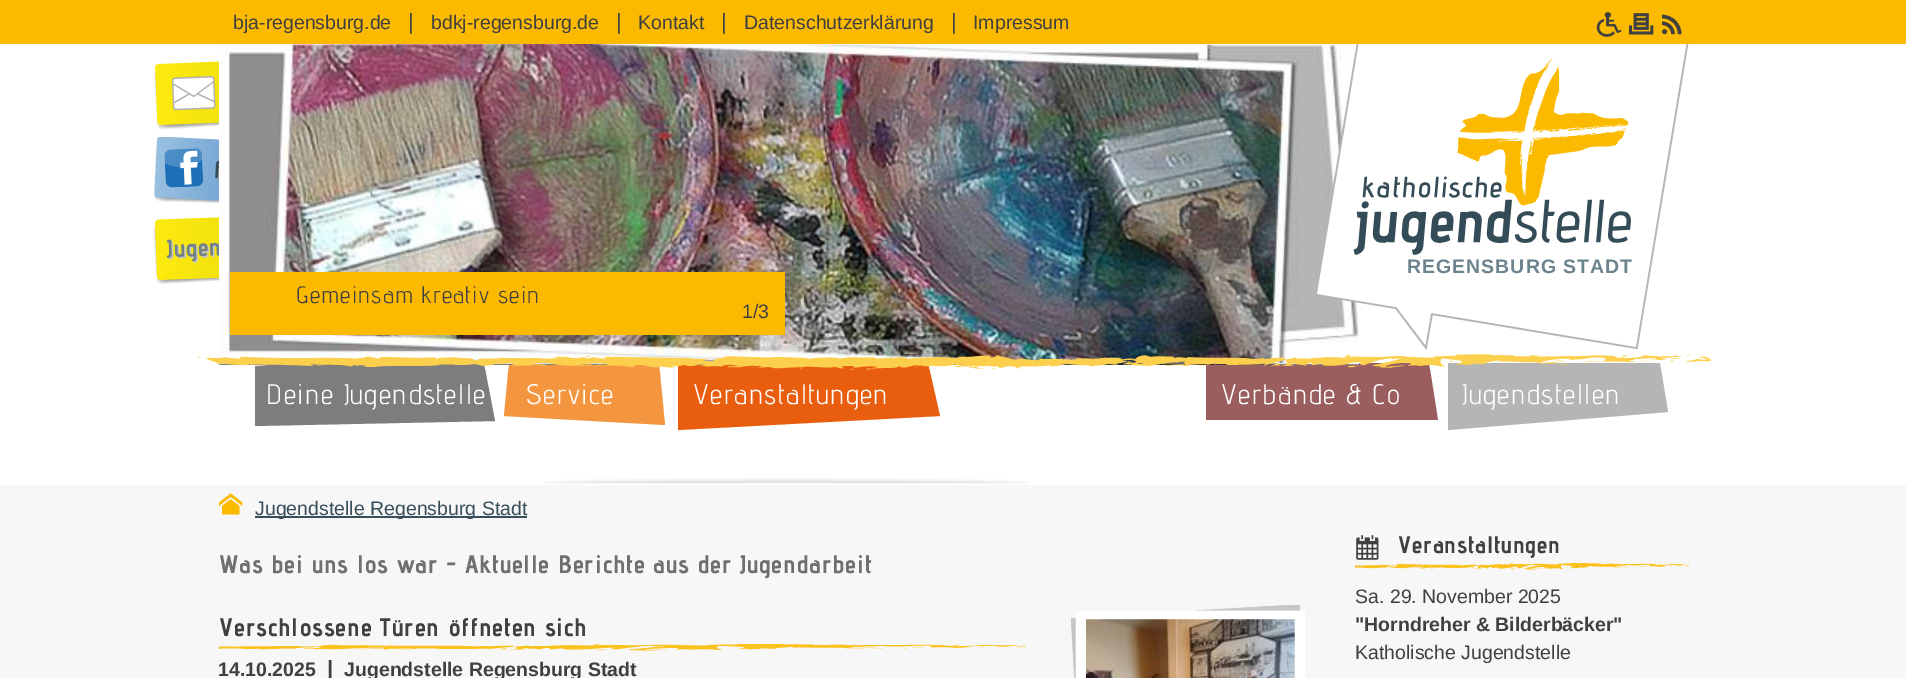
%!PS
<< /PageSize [1906 678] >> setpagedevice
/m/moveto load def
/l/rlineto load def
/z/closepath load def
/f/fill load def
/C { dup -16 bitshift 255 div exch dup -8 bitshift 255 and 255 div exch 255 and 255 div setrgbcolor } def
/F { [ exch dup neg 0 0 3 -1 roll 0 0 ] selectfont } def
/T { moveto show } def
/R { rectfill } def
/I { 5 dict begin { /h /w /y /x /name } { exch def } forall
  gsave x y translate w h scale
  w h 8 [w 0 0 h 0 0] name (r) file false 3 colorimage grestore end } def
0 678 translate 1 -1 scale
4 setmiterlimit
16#FFFFFF C
0 0 1906 678 R
16#FBBA00 C
0 0 1906 44 R
/LiberationSans-Regular 19.5 F
16#404040 C
(bja-regensburg.de) 233 29 T
/LiberationSans-Regular 22 F
(|) 408 29 T
/LiberationSans-Regular 19.5 F
(bdkj-regensburg.de) 431 29 T
/LiberationSans-Regular 22 F
(|) 616 29 T
/LiberationSans-Regular 19.5 F
(Kontakt) 638 29 T
/LiberationSans-Regular 22 F
(|) 721 29 T
/LiberationSans-Regular 19.5 F
(Datenschutzerklärung) 744 29 T
/LiberationSans-Regular 22 F
(|) 951 29 T
/LiberationSans-Regular 19.5 F
(Impressum) 973 29 T
(1.rgb) 1596 12 26 25 I
(2.rgb) 1629 13 25 22 I
(3.rgb) 1662 14 20 21 I
(4.rgb) 154 61 65 69 I
(5.rgb) 154 137 65 67 I
(6.rgb) 153 217 66 67 I
16#7D7D7D C
255 426 m 0 -60 l 226 -18 l 14 73 l z f
16#F3963F C
504 416 m 5 -53 l 150 0 l 6 62 l z f
16#E95D0F C
678 430 m 0 -67 l 250 0 l 12 53 l z f
16#9B5E5E C
1206 420 m 0 -57 l 223 0 l 9 57 l z f
16#111111 C
219 364 1139 1 R
(8.rgb) 219 44 1140 321 I
(7.rgb) 1317 44 372 306 I
/LiberationSans-Bold 19.5 F
16#6D838E C
1407 273 m 1 0 (REGENSBURG STADT) ashow
16#FBBA00 C
230 272 555 63 R
/AdventPro-Regular 23.75 F
16#404040 C
296 303 m 1.2 0 (Gemeinsam kreativ sein) ashow
/LiberationSans-Regular 19.5 F
(1/3) 742 318 T
16#B5B5B5 C
1448 430 m 0 -67 l 212 0 l 8 49 l z f
(9.rgb) 197 354 1514 16 I
/AdventPro-Regular 28.25 F
16#FFFFFF C
266 404 m 1.4 0 (Deine Jugendstelle) ashow
526 404 m 1.4 0 (Service) ashow
692 404 m 1.4 0 (Veranstaltungen) ashow
1220 404 m 1.4 0 (Verbände & Co) ashow
1462 404 m 1.4 0 (Jugendstellen) ashow
16#F7F7F7 C
0 485 1906 193 R
(10.rgb) 543 478 486 6 I
(11.rgb) 219 493 24 22 I
16#384F5B C
255 516 272 2 R
/LiberationSans-Regular 19.5 F
(Jugendstelle Regensburg Stadt) 255 515 T
/AdventPro-Bold 25.35 F
16#6F6F6F C
218 573 m .75 0 (Was bei uns los war - Aktuelle Berichte aus der Jugendarbeit) ashow
(12.rgb) 219 644 807 7 I
16#404040 C
218 636 m .75 0 (Verschlossene Türen öffneten sich) ashow
/LiberationSans-Bold 19.5 F
(14.10.2025) 218 676 T
/LiberationSans-Bold 22 F
(|) 327 676 T
/LiberationSans-Bold 19.5 F
(Jugendstelle Regensburg Stadt) 344 676 T
(13.rgb) 1071 605 234 73 I
(14.rgb) 1086 619 209 59 I
(15.rgb) 1355 563 334 7 I
(16.rgb) 1356 535 23 25 I
/AdventPro-Bold 23.75 F
1397 553 m .75 0 (Veranstaltungen) ashow
/LiberationSans-Regular 19.5 F
(Sa. 29. November 2025) 1355 603 T
/LiberationSans-Bold 19.5 F
("Horndreher & Bilderbäcker") 1355 631 T
/LiberationSans-Regular 19.5 F
(Katholische Jugendstelle) 1355 659 T
showpage
